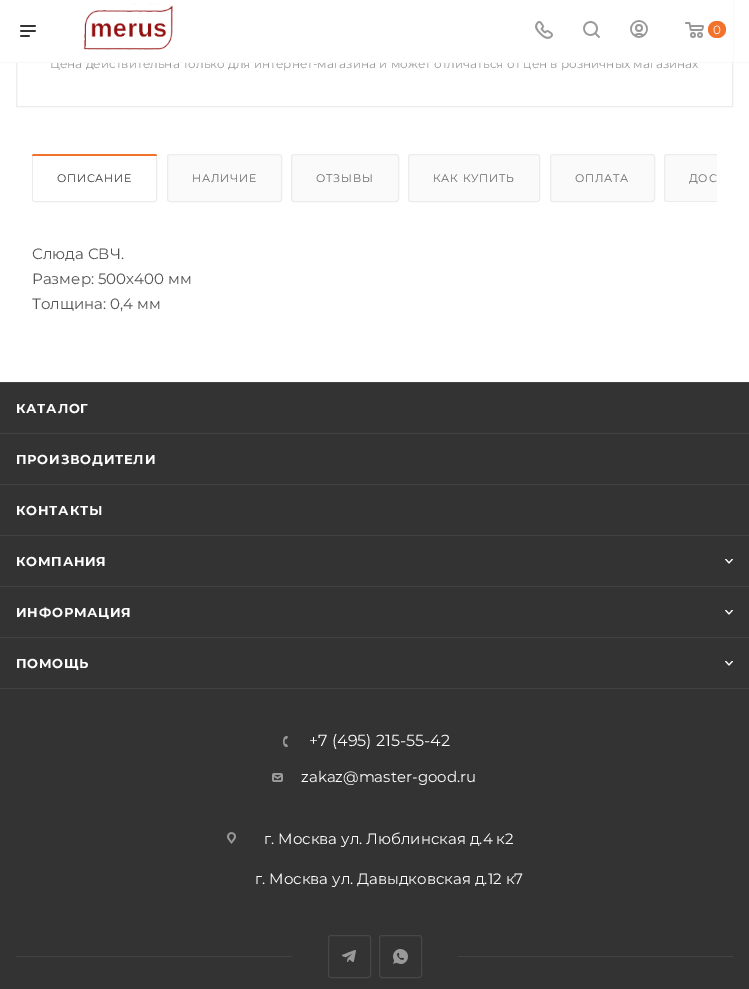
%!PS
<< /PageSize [749 989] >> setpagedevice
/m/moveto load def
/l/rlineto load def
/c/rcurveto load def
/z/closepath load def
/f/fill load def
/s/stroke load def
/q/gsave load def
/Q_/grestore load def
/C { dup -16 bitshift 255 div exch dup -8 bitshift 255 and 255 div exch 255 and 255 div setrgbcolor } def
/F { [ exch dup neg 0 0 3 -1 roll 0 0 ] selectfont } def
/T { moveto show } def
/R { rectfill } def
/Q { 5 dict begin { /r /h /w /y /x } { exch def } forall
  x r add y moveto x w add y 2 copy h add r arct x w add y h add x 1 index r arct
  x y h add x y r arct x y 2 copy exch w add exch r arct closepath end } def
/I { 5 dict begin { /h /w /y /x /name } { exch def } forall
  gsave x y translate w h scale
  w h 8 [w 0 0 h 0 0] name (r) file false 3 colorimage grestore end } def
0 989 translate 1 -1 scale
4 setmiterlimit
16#FFFFFF C
0 0 749 989 R
16#ECECEC C
16.5 -.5 716 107 rectstroke
/Montserrat-Regular 12 F
16#999999 C
(Цена действительна только для интернет-магазина и может отличаться от цен в розничных магазинах) 50 68 T
16#FFFFFF C
16 0 717 62 R
16#F8F8F8 C
0 62 749 1 R
(1.rgb) 20 25 16 12 I
(2.rgb) 83 3 90 47 I
(3.rgb) 535 21 18 18 I
(4.rgb) 583 21 17 17 I
(5.rgb) 630 20 18 18 I
(6.rgb) 685 22 19 16 I
16#F2722C C
708 21 18 17 8.5 Q f
16#FFFFFF C
(0) 713 34 T
16#FAFAFA C
32.5 154.5 124 47 2.5 Q q f Q_
16#ECECEC C
s
16#FFFFFF C
33 155 123 46 3 Q f
16#F2722C C
34 154 m 121 0 l 1 0 2 1 2 2 c -125 0 l 0 -1 1 -2 2 -2 c z f
/Montserrat-Regular 11 F
16#333333 C
57 182 m .75 0 (ОПИСАНИЕ) ashow
16#FAFAFA C
167.5 154.5 114 47 2.5 Q q f Q_
16#ECECEC C
s
16#666666 C
192 182 m .75 0 (НАЛИЧИЕ) ashow
16#FAFAFA C
291.5 154.5 107 47 2.5 Q q f Q_
16#ECECEC C
s
16#666666 C
316 182 m .75 0 (ОТЗЫВЫ) ashow
16#FAFAFA C
408.5 154.5 131 47 2.5 Q q f Q_
16#ECECEC C
s
16#666666 C
433 182 m .75 0 (КАК КУПИТЬ) ashow
16#FAFAFA C
550.5 154.5 104 47 2.5 Q q f Q_
16#ECECEC C
s
16#666666 C
575 182 m .75 0 (ОПЛАТА) ashow
16#FAFAFA C
667 154 m 50 0 l 0 48 l -50 0 l -1.5 0 -3 -1.5 -3 -3 c 0 -42 l 0 -1.5 1.5 -3 3 -3 c z f
q
32 154 685 48 rectclip
16#ECECEC C
664.5 154.5 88 47 2.5 Q s
Q_
16#666666 C
689 182 m .75 0 (ДОС) ashow
/Montserrat-Regular 15 F
16#555555 C
(Слюда СВЧ.) 32 259 T
(Размер: 500х400 мм) 32 284 T
(Толщина: 0,4 мм) 32 309 T
16#333333 C
0 383 749 606 R
16#434343 C
0 382 749 1 R
0 433 749 1 R
/Montserrat-Bold 13 F
16#FFFFFF C
16 413 m .75 0 (КАТАЛОГ) ashow
16#434343 C
0 484 749 1 R
16#FFFFFF C
16 464 m .75 0 (ПРОИЗВОДИТЕЛИ) ashow
16#434343 C
0 535 749 1 R
16#FFFFFF C
16 515 m .75 0 (КОНТАКТЫ) ashow
16#434343 C
0 586 749 1 R
16#FFFFFF C
16 566 m .75 0 (КОМПАНИЯ) ashow
(7.rgb) 725 559 8 5 I
16#434343 C
0 637 749 1 R
16#FFFFFF C
16 617 m .75 0 (ИНФОРМАЦИЯ) ashow
(8.rgb) 725 610 8 5 I
16#434343 C
0 688 749 1 R
16#FFFFFF C
16 668 m .75 0 (ПОМОЩЬ) ashow
(9.rgb) 725 661 8 5 I
(10.rgb) 283 736 5 11 I
/Montserrat-Regular 16 F
(+7 \(495\) 215-55-42) 309 746 T
(11.rgb) 272 773 11 9 I
/Montserrat-Regular 15 F
(zakaz@master-good.ru) 301 782 T
(12.rgb) 227 832 9 12 I
(г. Москва ул. Люблинская д.4 к2) 264 844 T
(г. Москва ул. Давыдковская д.12 к7) 255 884 T
16#434343 C
16 956 717 1 R
16#333333 C
292 956 166 1 R
(13.rgb) 342 950 14 12 I
16#474747 C
328.5 935.5 42 42 2.5 Q s
(14.rgb) 393 949 15 15 I
379.5 935.5 42 42 2.5 Q s
showpage
